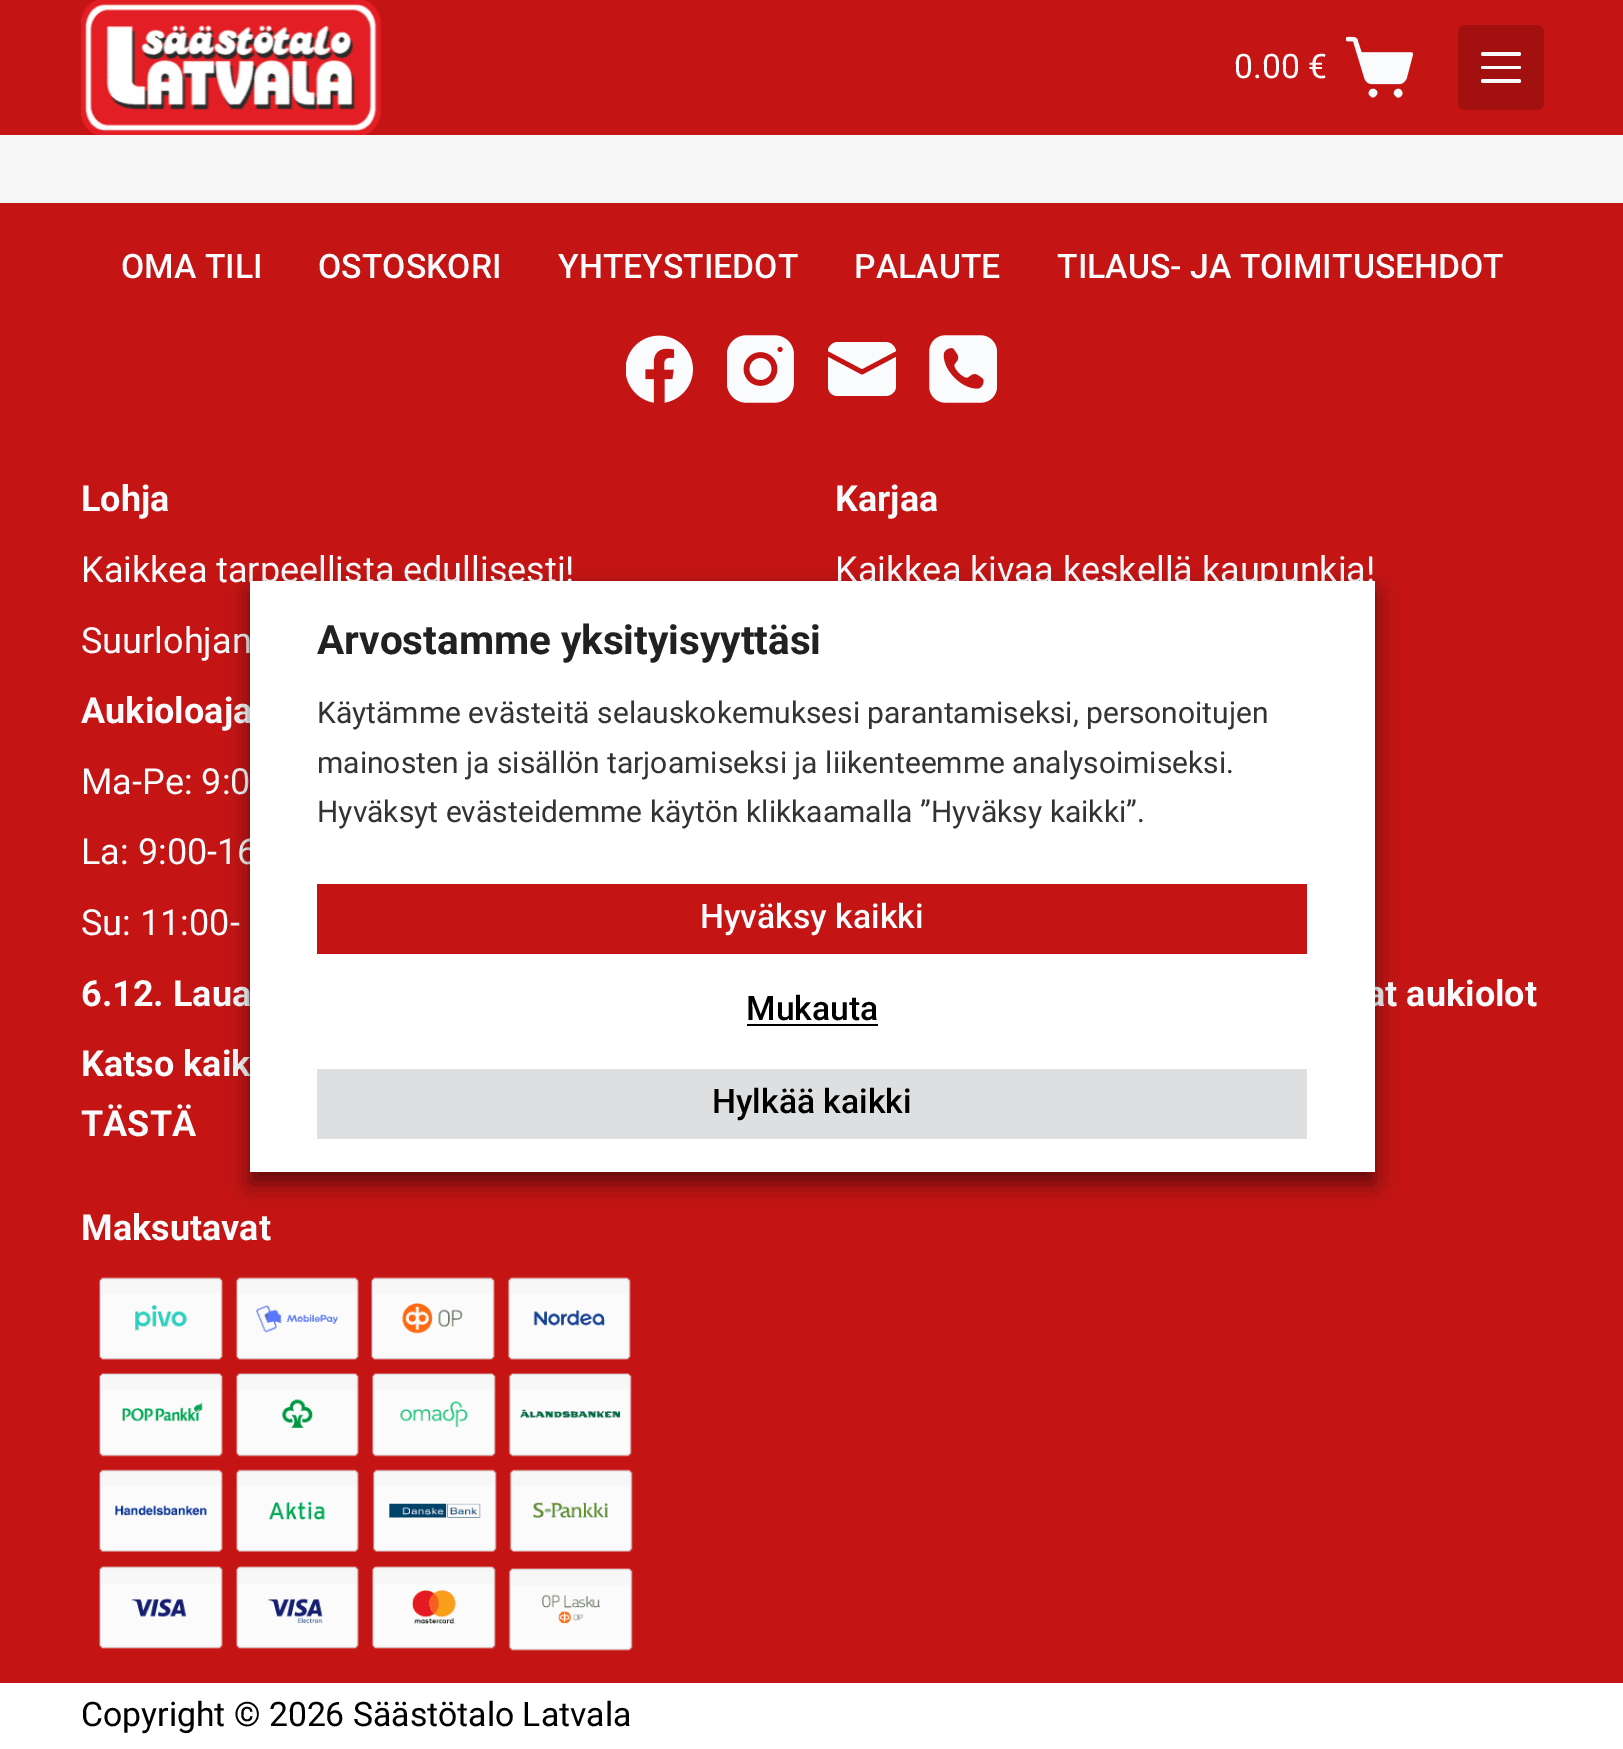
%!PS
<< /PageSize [1623 1749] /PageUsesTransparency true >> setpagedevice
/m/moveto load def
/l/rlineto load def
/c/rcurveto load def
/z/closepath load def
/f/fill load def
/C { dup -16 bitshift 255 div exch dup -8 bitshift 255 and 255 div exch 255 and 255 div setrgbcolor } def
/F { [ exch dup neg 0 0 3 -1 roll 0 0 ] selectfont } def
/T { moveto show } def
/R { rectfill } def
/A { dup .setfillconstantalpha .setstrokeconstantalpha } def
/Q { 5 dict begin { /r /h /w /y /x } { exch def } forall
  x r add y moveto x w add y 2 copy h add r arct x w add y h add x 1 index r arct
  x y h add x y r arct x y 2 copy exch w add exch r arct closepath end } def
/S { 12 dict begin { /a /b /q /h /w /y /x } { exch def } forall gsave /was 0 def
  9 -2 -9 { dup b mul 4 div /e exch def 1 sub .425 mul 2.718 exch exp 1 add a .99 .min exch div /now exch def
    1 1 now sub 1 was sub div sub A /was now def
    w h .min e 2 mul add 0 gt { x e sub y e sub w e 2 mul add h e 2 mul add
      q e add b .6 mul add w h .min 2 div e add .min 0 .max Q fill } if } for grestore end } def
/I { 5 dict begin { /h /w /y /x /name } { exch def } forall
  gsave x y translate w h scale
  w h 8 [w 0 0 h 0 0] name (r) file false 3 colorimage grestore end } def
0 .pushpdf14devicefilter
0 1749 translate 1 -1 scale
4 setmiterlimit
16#F7F7F7 C
0 0 1623 1749 R
16#C41414 C
0 0 1623 135 R
(1.rgb) 81 0 300 135 I
/Roboto-Regular 33.75 F
16#FAFBFC C
(0.00 €) 1234 78 T
(2.rgb) 1346 36 67 62 I
16#A31010 C
1458 25 86 85 7 Q f
16#FAFBFC C
1481 52 40 4 2 Q f
1481 66 40 3 1.5 Q f
1481 79 40 4 2 Q f
16#C41414 C
0 203 1623 1480 R
/Roboto-Medium 33.75 F
16#FAFBFC C
(OMA TILI) 121 278 T
(OSTOSKORI) 318 278 T
(YHTEYSTIEDOT) 558 278 T
(PALAUTE) 854 278 T
(TILAUS- JA TOIMITUSEHDOT) 1057 278 T
(3.rgb) 626 335 67 68 I
(4.rgb) 727 335 67 68 I
862 369 m -34 -18 l 0 -5 5 -9 10 -9 c 47 0 l 6 0 10 4 11 9 c z 862 375 m -34 -18 l 0 29 l 0 6 4 10 10 10 c 47 0 l 6 0 11 -4 11 -10 c 0 -29 l z f
(5.rgb) 929 335 68 68 I
/Roboto-Bold 36 F
(Lohja) 81 511 T
/Roboto-Regular 36 F
(Kaikkea tarpeellista edullisesti!) 81 582 T
(Suurlohjan) 81 653 T
/Roboto-Bold 36 F
(Aukioloaja) 81 723 T
/Roboto-Regular 36 F
(Ma-Pe: 9:0) 81 794 T
(La: 9:00-16) 81 864 T
(Su: 11:00-) 81 935 T
/Roboto-Bold 36 F
(6.12. Laua) 81 1006 T
(Katso kaik) 81 1076 T
(TÄSTÄ) 81 1136 T
(Karjaa) 835 511 T
/Roboto-Regular 36 F
(Kaikkea kivaa keskellä kaupunkia!) 835 582 T
/Roboto-Bold 36 F
(at aukiolot) 1366 1006 T
(Maksutavat) 81 1240 T
(6.rgb) 99 1277 534 374 I
16#FFFFFF C
0 1683 1623 66 R
/Roboto-Regular 33.75 F
16#000000 C
(Copyright © 2026 Säästötalo Latvala) 81 1726 T
250 592 1125 592 0 11 .5 S
16#FFFFFF C
250 581 1125 591 R
/Roboto-Bold 40.5 F
16#212121 C
(Arvostamme yksityisyyttäsi) 317 654 T
/Roboto-Regular 30 F
16#333333 C
(Käytämme evästeitä selauskokemuksesi parantamiseksi, personoitujen) 317 723 T
(mainosten ja sisällön tarjoamiseksi ja liikenteemme analysoimiseksi.) 317 773 T
(Hyväksyt evästeidemme käytön klikkaamalla ”Hyväksy kaikki”.) 317 822 T
16#C41414 C
317 884 990 70 R
/Roboto-Medium 33.75 F
16#FAFBFC C
(Hyväksy kaikki) 700 928 T
16#000000 C
(Mukauta) 746 1020 T
747 1024 131 2 R
16#DEDFE0 C
317 1069 990 70 R
16#000000 C
(Hylkää kaikki) 712 1113 T
.poppdf14devicefilter showpage
